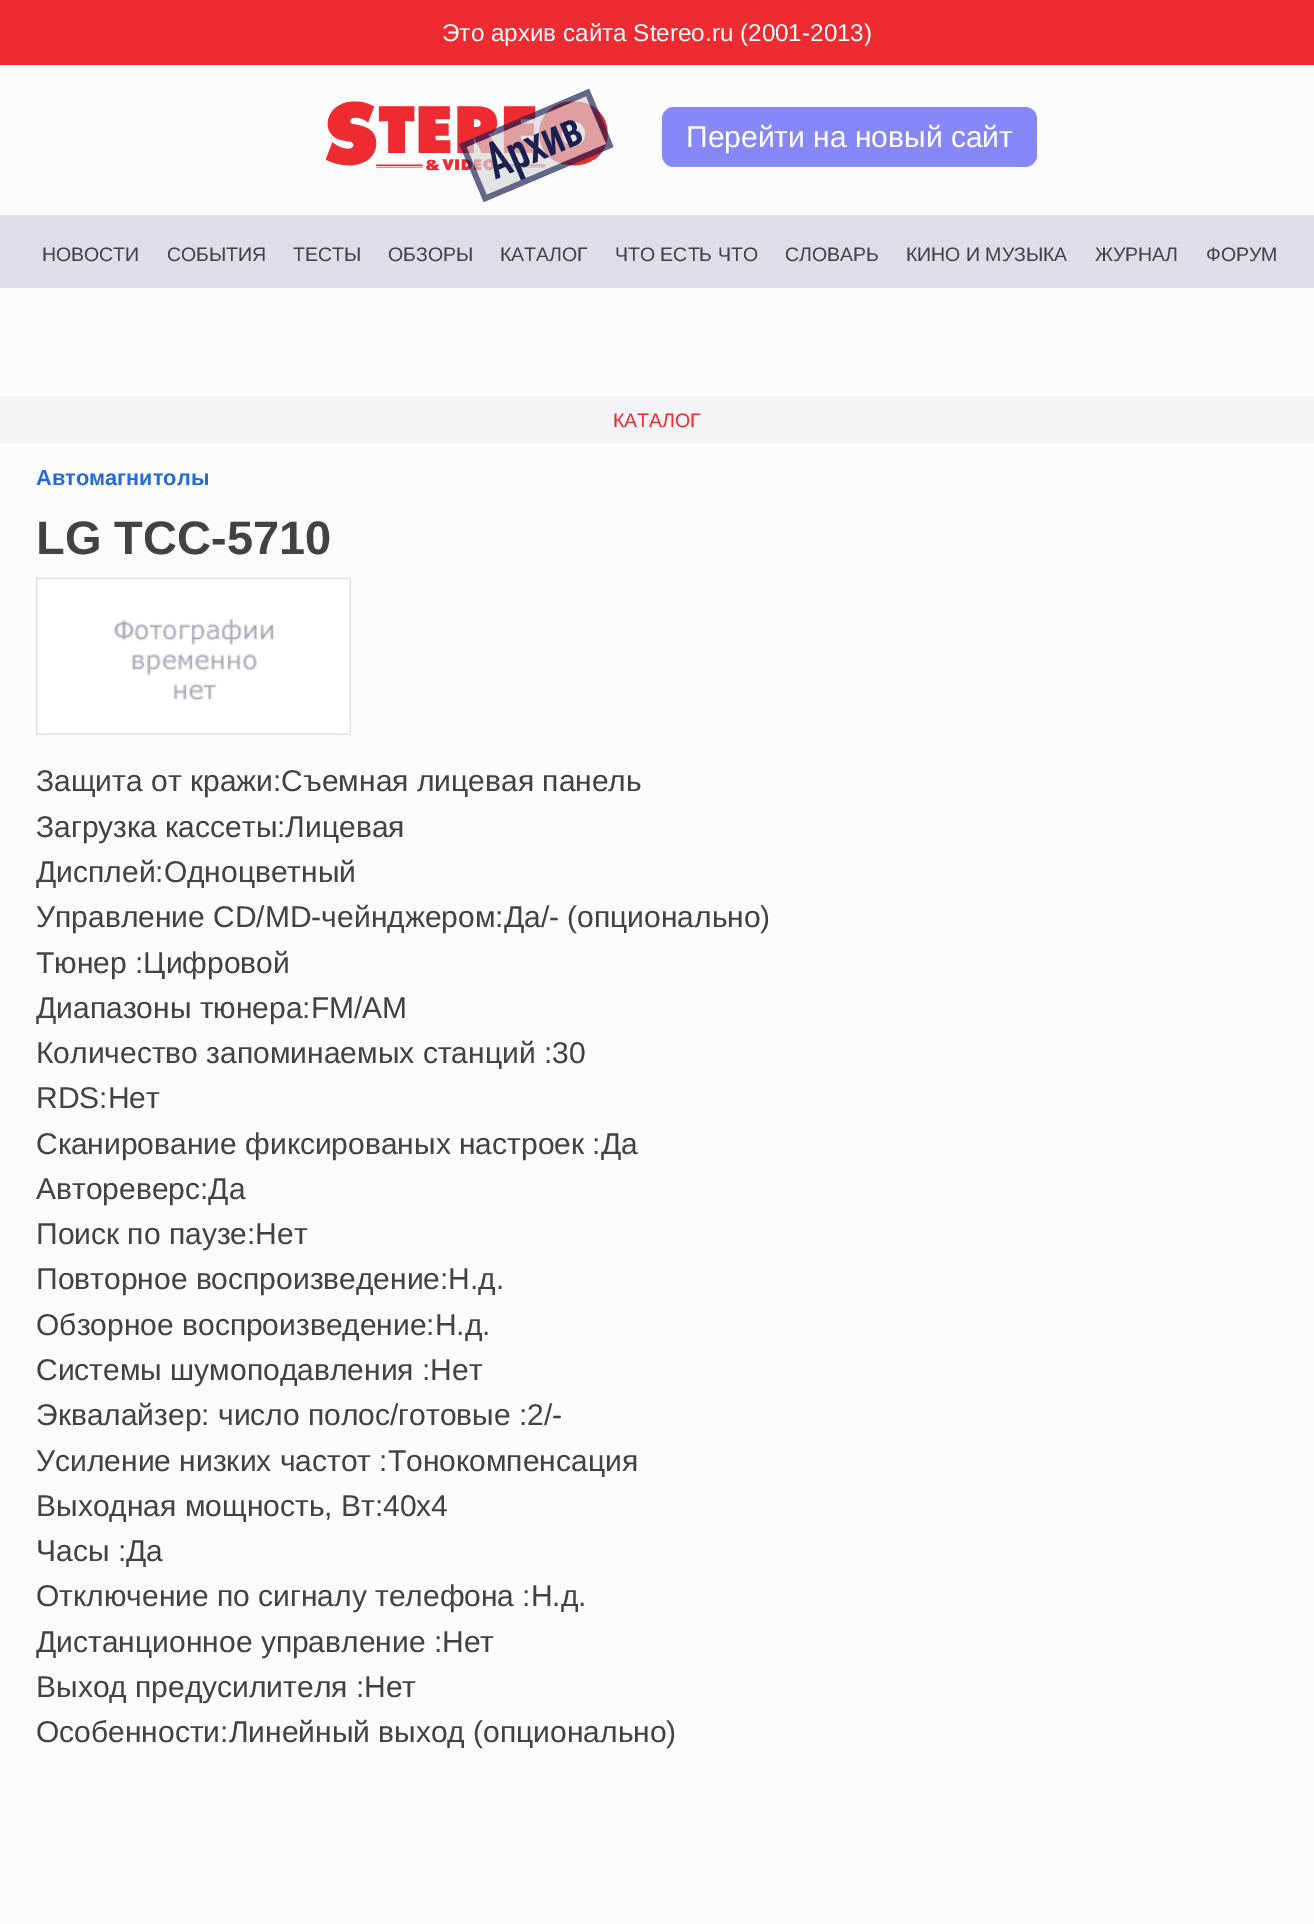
%!PS
<< /PageSize [1314 1924] >> setpagedevice
/f/fill load def
/C { dup -16 bitshift 255 div exch dup -8 bitshift 255 and 255 div exch 255 and 255 div setrgbcolor } def
/F { [ exch dup neg 0 0 3 -1 roll 0 0 ] selectfont } def
/T { moveto show } def
/R { rectfill } def
/Q { 5 dict begin { /r /h /w /y /x } { exch def } forall
  x r add y moveto x w add y 2 copy h add r arct x w add y h add x 1 index r arct
  x y h add x y r arct x y 2 copy exch w add exch r arct closepath end } def
/I { 5 dict begin { /h /w /y /x /name } { exch def } forall
  gsave x y translate w h scale
  w h 8 [w 0 0 h 0 0] name (r) file false 3 colorimage grestore end } def
0 1924 translate 1 -1 scale
4 setmiterlimit
16#FCFCFD C
0 0 1314 1924 R
16#EE2B31 C
0 0 1314 65 R
/LiberationSans-Regular 24.25 F
16#FFFFFF C
(Это архив сайта Stereo.ru \(2001-2013\)) 442 41 T
(1.rgb) 326 89 288 114 I
16#8688F9 C
662 107 375 60 12 Q f
/LiberationSans-Regular 30 F
16#FFFFFF C
(Перейти на новый сайт) 686 147 T
16#DFDEE6 C
0 215 1314 73 R
/LiberationSans-Regular 19.5 F
16#434144 C
(НОВОСТИ) 42 261 T
(СОБЫТИЯ) 167 261 T
(ТЕСТЫ) 293 261 T
(ОБЗОРЫ) 388 261 T
(КАТАЛОГ) 500 261 T
(ЧТО ЕСТЬ ЧТО) 615 261 T
(СЛОВАРЬ) 785 261 T
(КИНО И МУЗЫКА) 906 261 T
(ЖУРНАЛ) 1095 261 T
(ФОРУМ) 1206 261 T
16#F4F3F6 C
0 396 1314 47 R
16#EE2B31 C
(КАТАЛОГ) 613 427 T
/LiberationSans-Bold 21.75 F
16#266BD9 C
(Автомагнитолы) 36 485 T
/LiberationSans-Bold 47 F
16#434144 C
(LG TCC-5710) 36 554 T
(2.rgb) 36 577 315 158 I
/LiberationSans-Regular 30 F
(Защита от кражи:Съемная лицевая панель) 36 791 T
(Загрузка кассеты:Лицевая) 36 837 T
(Дисплей:Одноцветный) 36 882 T
(Управление CD/MD-чейнджером:Да/- \(опционально\)) 36 927 T
(Тюнер :Цифровой) 36 973 T
(Диапазоны тюнера:FM/AM) 36 1018 T
(Количество запоминаемых станций :30) 36 1063 T
(RDS:Нет) 36 1108 T
(Сканирование фиксированых настроек :Да) 36 1154 T
(Автореверс:Да) 36 1199 T
(Поиск по паузе:Нет) 36 1244 T
(Повторное воспроизведение:Н.д.) 36 1289 T
(Обзорное воспроизведение:Н.д.) 36 1335 T
(Системы шумоподавления :Нет) 36 1380 T
(Эквалайзер: число полос/готовые :2/-) 36 1425 T
(Усиление низких частот :Тонокомпенсация) 36 1471 T
(Выходная мощность, Вт:40x4) 36 1516 T
(Часы :Да) 36 1561 T
(Отключение по сигналу телефона :Н.д.) 36 1606 T
(Дистанционное управление :Нет) 36 1652 T
(Выход предусилителя :Нет) 36 1697 T
(Особенности:Линейный выход \(опционально\)) 36 1742 T
showpage
